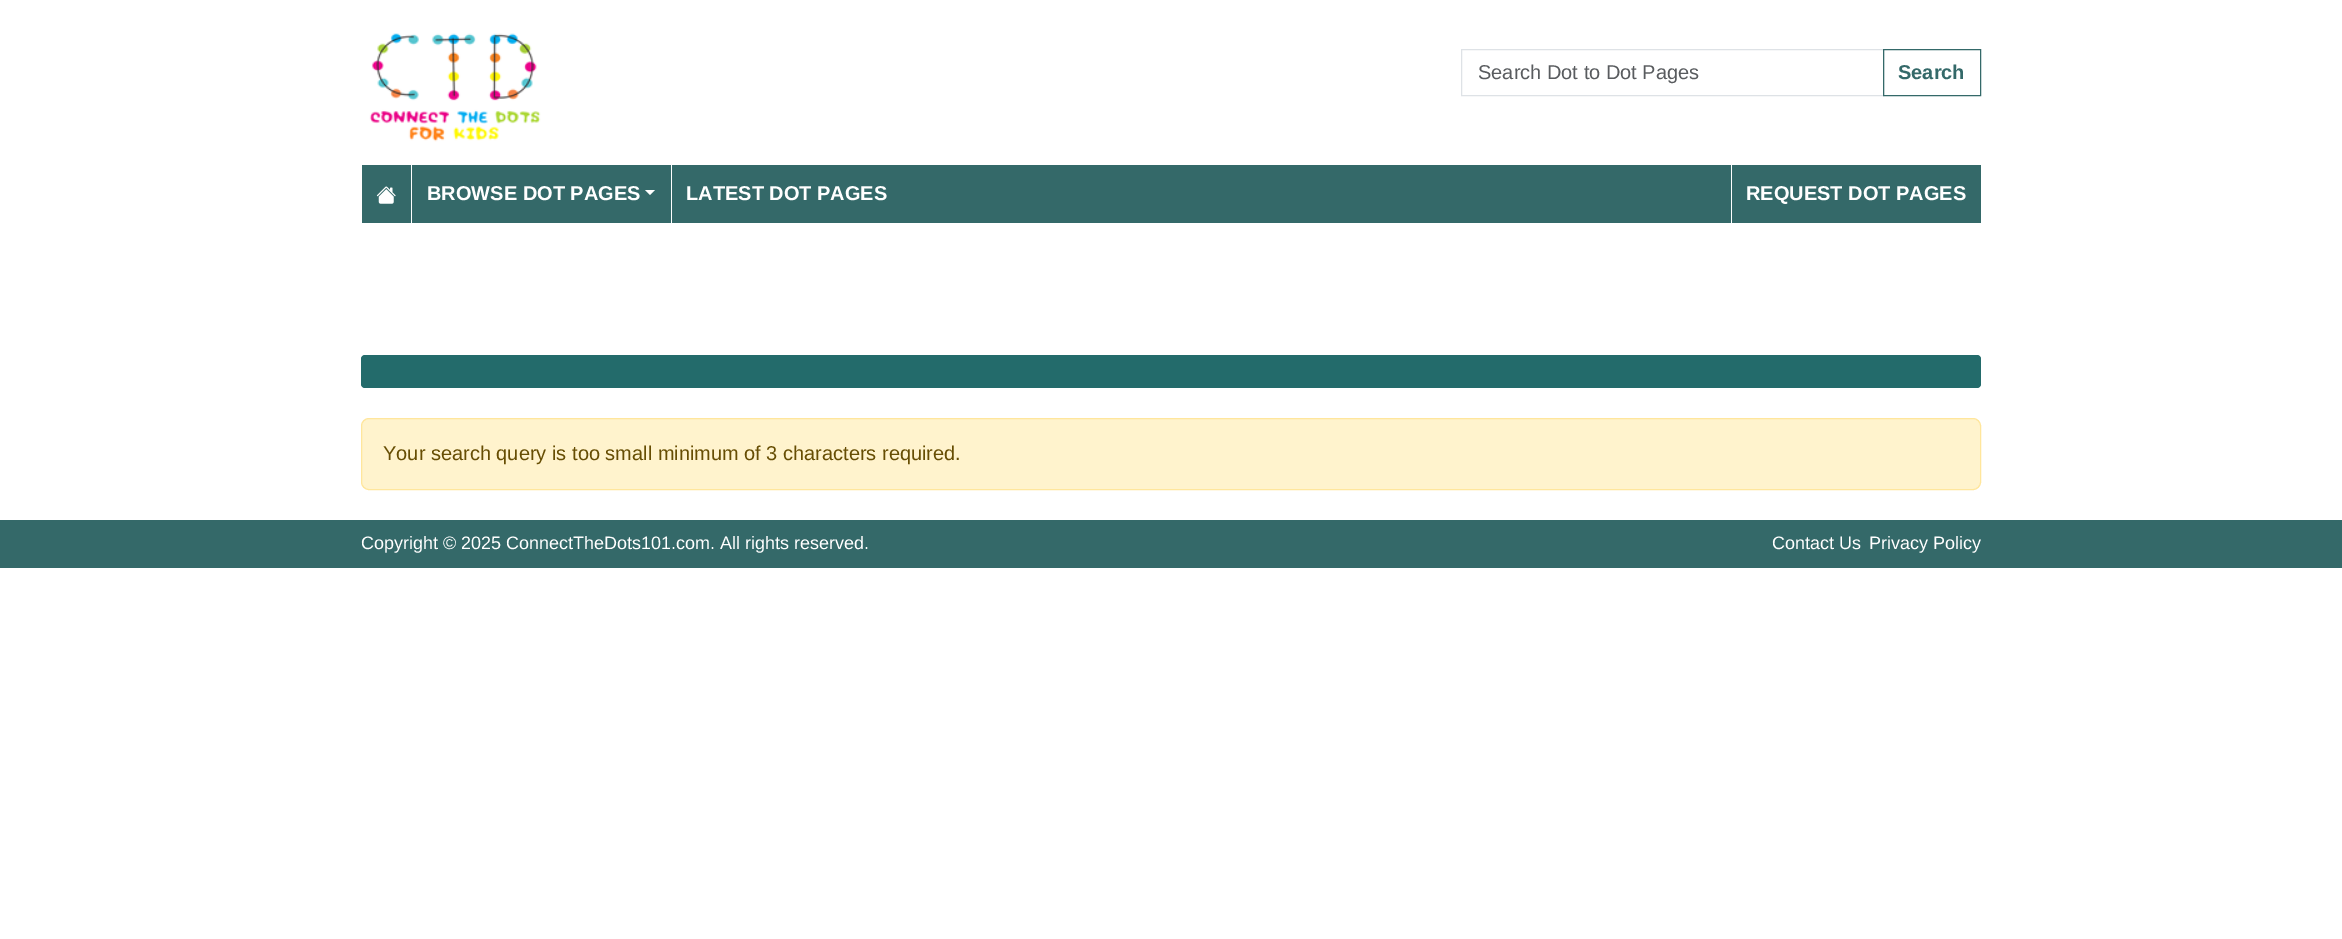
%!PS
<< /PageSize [2342 939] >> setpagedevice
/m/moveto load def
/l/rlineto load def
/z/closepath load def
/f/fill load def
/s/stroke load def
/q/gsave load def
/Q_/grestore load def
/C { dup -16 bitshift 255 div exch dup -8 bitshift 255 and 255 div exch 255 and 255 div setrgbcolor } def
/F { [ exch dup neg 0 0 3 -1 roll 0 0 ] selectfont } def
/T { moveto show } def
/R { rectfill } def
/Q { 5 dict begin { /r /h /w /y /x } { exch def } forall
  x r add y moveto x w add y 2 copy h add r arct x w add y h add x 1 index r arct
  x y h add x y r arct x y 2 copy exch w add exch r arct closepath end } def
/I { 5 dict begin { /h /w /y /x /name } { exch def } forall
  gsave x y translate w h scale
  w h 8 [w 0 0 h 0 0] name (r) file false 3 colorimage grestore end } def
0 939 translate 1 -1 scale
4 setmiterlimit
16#FFFFFF C
0 0 2342 939 R
(1.rgb) 369 33 172 109 I
16#DEE2E6 C
1461.5 49.5 422 46 rectstroke
/LiberationSans-Regular 20 F
16#595C5F C
(Search Dot to Dot Pages) 1478 79 T
16#346969 C
1883.5 49.5 97 46 rectstroke
/LiberationSans-Bold 20 F
(Search) 1898 79 T
362 165 1619 58 R
(2.rgb) 376 186 20 18 I
16#FFFFFF C
411 165 1 58 R
(BROWSE DOT PAGES) 427 200 T
645 190 m 10 0 l -5 5 l z f
671 165 1 58 R
(LATEST DOT PAGES) 686 200 T
1731 165 1 58 R
(REQUEST DOT PAGES) 1746 200 T
16#236B6B C
361 355 1620 33 4 Q f
16#FFF3CD C
361.5 418.5 1619 71 7.5 Q q f Q_
16#FFE69C C
s
/LiberationSans-Regular 20 F
16#664D03 C
(Your search query is too small minimum of 3 characters required.) 383 460 T
16#346969 C
0 520 2342 48 R
/LiberationSans-Regular 18 F
16#FFFFFF C
(Copyright © 2025 ConnectTheDots101.com. All rights reserved.) 361 549 T
(Contact Us) 1772 549 T
(Privacy Policy) 1869 549 T
showpage
